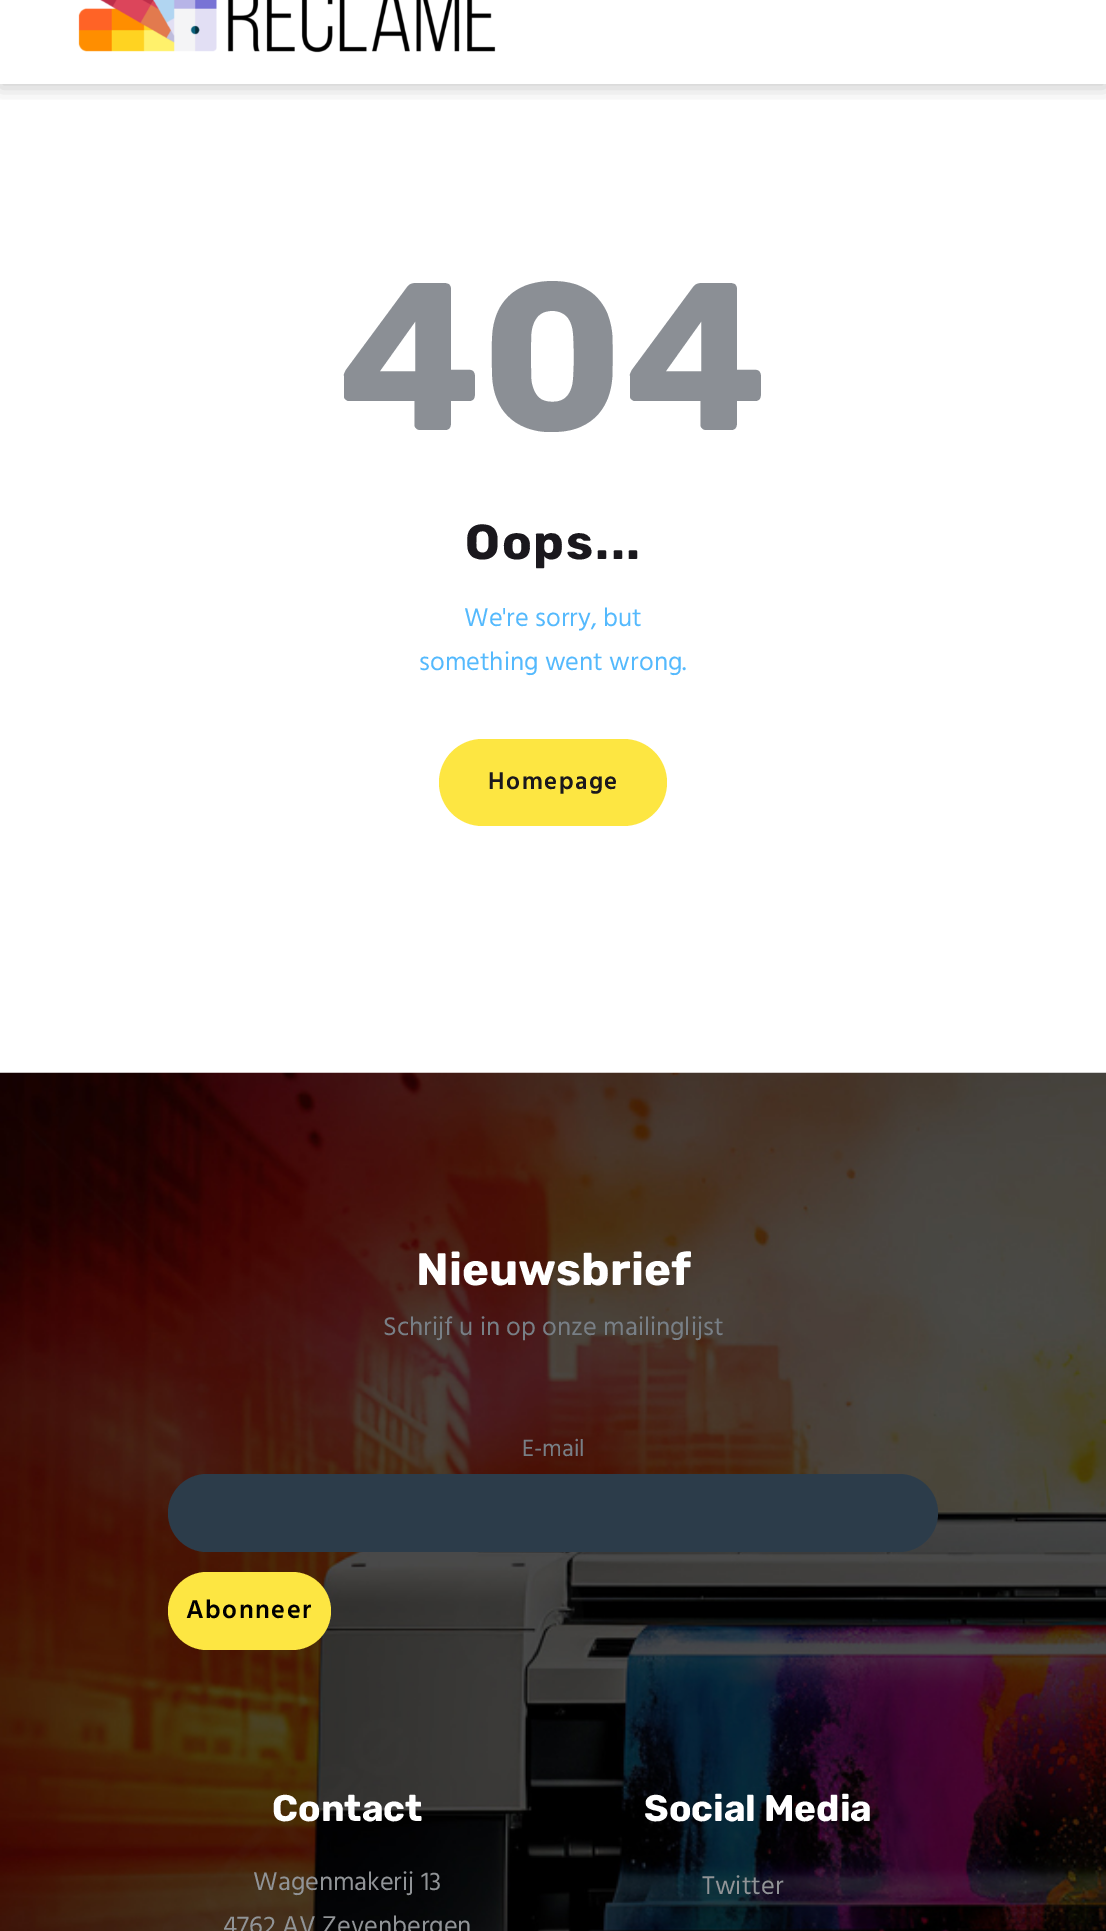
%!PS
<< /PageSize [1106 1931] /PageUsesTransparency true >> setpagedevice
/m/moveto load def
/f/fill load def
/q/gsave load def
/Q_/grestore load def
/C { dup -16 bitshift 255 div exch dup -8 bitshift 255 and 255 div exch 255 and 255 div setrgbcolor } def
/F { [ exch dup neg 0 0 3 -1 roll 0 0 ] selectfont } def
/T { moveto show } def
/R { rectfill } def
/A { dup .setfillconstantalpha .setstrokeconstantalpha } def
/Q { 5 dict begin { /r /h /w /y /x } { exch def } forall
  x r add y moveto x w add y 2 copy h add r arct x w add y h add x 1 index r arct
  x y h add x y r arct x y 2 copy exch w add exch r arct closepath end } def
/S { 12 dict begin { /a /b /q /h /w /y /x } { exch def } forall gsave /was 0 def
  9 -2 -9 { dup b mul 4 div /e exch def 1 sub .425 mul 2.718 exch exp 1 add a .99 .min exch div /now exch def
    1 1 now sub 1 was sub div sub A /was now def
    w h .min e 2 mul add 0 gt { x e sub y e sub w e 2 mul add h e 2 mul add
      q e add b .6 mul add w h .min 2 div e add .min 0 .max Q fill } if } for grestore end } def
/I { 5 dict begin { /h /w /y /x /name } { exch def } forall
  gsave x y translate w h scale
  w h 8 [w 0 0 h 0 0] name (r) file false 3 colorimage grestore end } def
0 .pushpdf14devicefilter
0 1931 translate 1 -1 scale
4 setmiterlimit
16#FFFFFF C
0 0 1106 1931 R
q
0 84 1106 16 rectclip
16#000000 C
0 -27 1106 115 0 9 .2 S
Q_
(1.rgb) 78 0 418 53 I
/Rubik-Bold 210 F
16#8B8F95 C
(404) 338 430 T
/Rubik-Bold 49 F
16#1A181D C
465 559 m 1.75 0 (Oops...) ashow
/Hind-Regular 26.25 F
16#54B9FD C
(We're sorry, but) 464 626 T
(something went wrong.) 419 670 T
16#FDE642 C
439 739 228 87 43.5 Q f
/Hind-SemiBold 24.75 F
16#1A181D C
488 789 m 1.5 0 (Homepage) ashow
(2.rgb) 0 1072 1106 859 I
/Rubik-Bold 45.5 F
16#FFFFFF C
(Nieuwsbrief) 416 1285 T
/Hind-Regular 26.25 F
16#787F86 C
(Schrijf u in op onze mailinglijst) 383 1335 T
/Hind-Regular 24 F
(E-mail) 522 1456 T
16#2C3C4A C
168 1474 770 78 39 Q f
16#FDE642 C
168 1572 163 78 39 Q f
/Hind-SemiBold 26.25 F
16#000000 C
186 1618 m 1.5 0 (Abonneer) ashow
/Rubik-Bold 37 F
16#FFFFFF C
(Contact) 272 1821 T
/Hind-Regular 26.25 F
16#919497 C
(Wagenmakerij 13) 253 1890 T
(4762 AV Zevenbergen) 223 1934 T
/Rubik-Bold 37 F
16#FFFFFF C
(Social Media) 644 1821 T
/Hind-Regular 26.25 F
16#919497 C
(Twitter) 702 1894 T
.poppdf14devicefilter showpage
